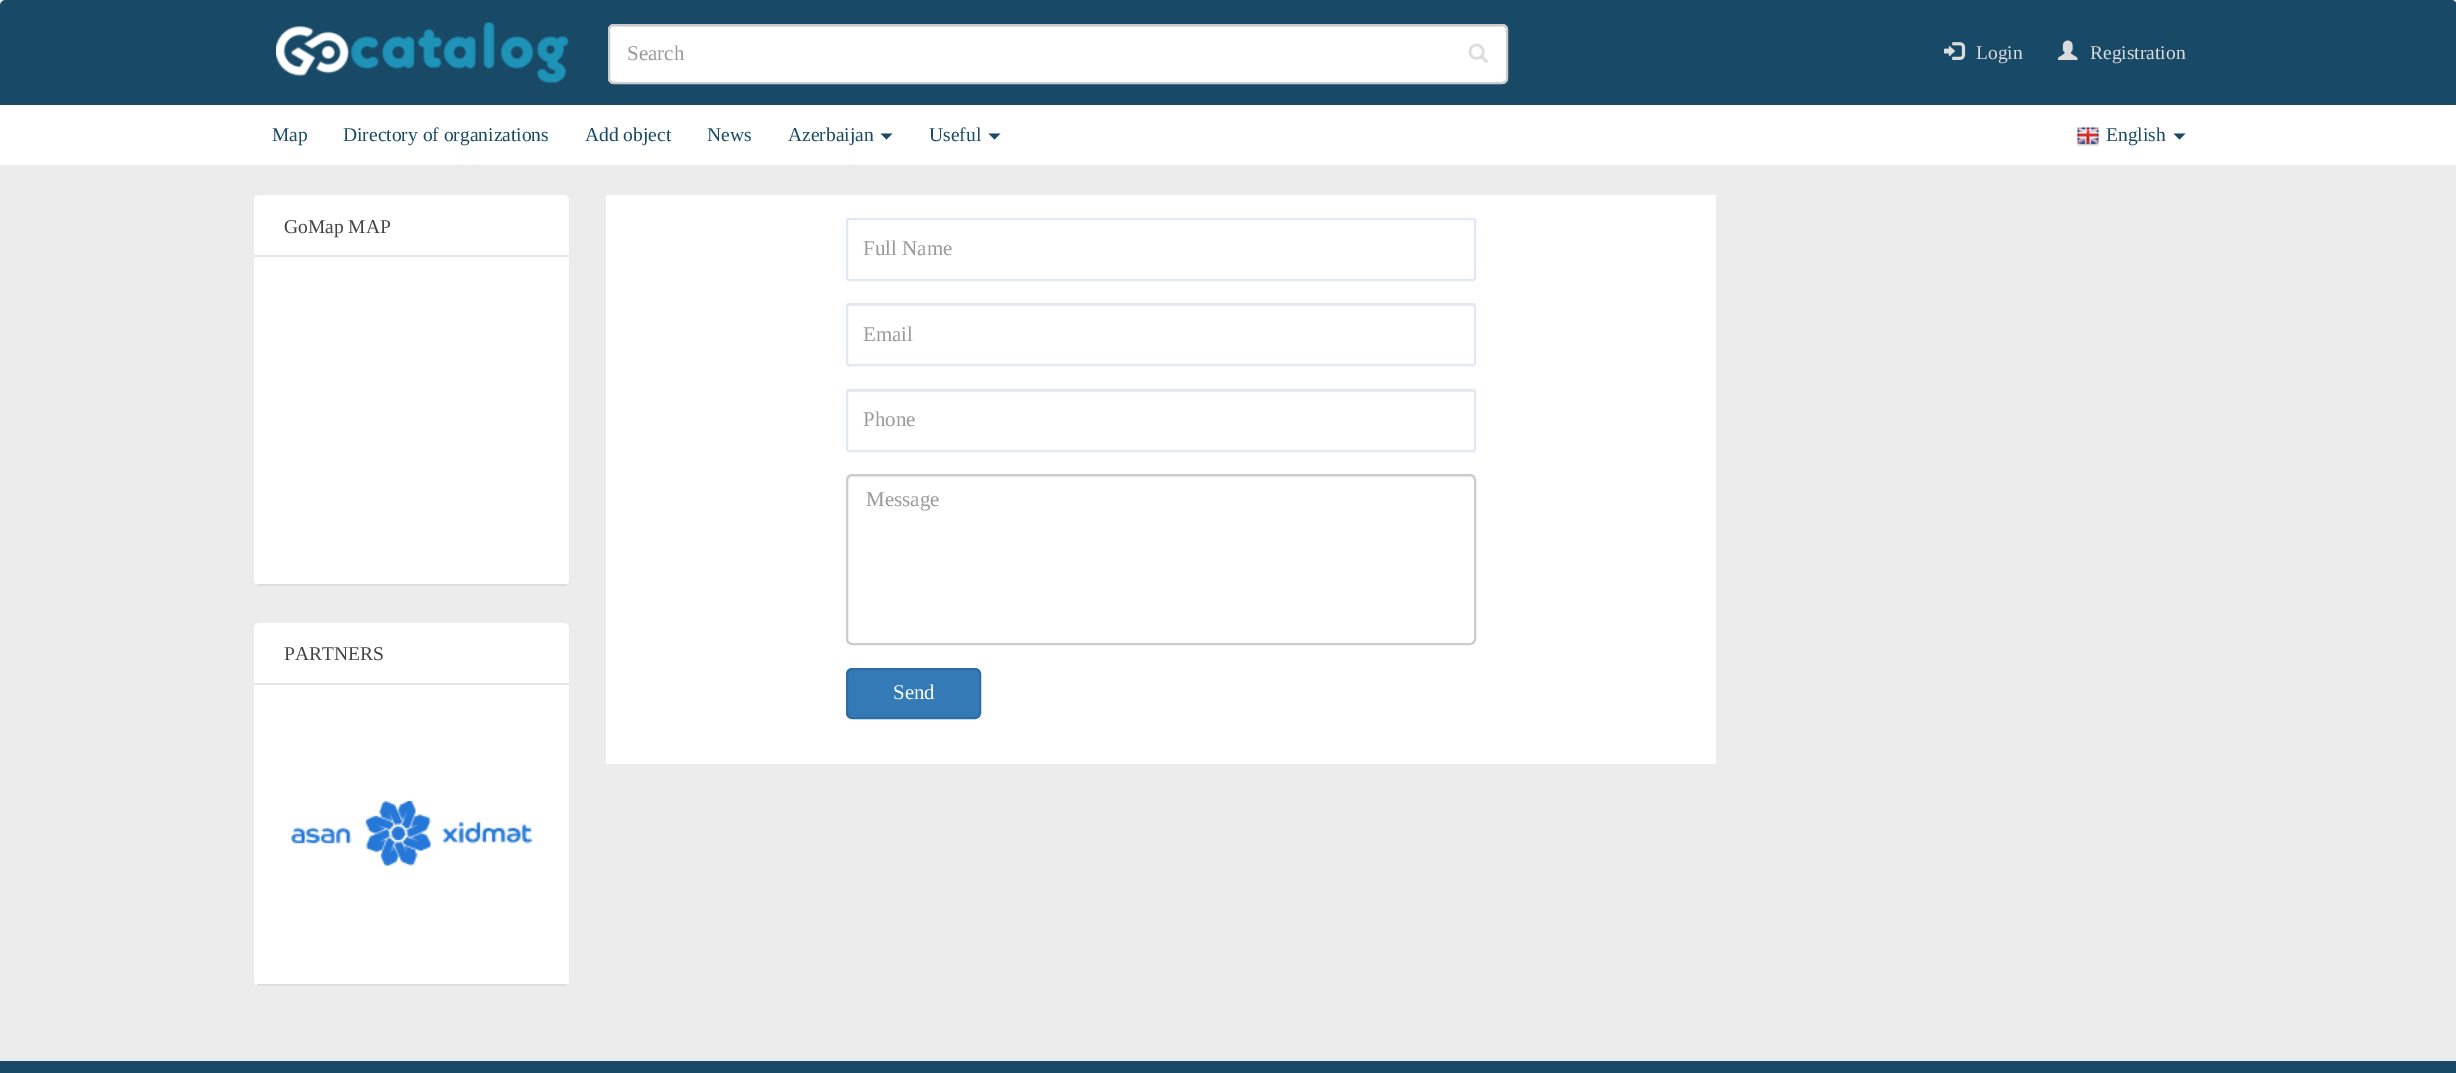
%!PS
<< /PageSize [2456 1073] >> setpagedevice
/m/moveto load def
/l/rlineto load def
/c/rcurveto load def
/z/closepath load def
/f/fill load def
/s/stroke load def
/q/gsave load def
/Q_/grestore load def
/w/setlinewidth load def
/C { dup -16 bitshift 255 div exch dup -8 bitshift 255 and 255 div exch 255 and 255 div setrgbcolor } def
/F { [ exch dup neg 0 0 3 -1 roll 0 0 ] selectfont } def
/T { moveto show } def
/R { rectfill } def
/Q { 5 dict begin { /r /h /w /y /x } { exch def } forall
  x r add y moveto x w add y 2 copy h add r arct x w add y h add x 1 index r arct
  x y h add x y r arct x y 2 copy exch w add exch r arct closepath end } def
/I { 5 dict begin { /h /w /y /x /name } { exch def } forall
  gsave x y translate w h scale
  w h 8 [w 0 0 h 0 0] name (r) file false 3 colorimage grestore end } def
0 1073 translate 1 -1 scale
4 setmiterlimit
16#ECECEC C
0 0 2456 1073 R
16#184A67 C
0 0 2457 165 6 Q f
(1.rgb) 276 22 293 61 I
16#FFFFFF C
608 24 900 60 6 Q f
16#ECECEC C
614 27 m 888 0 l 2 0 4 2 4 5 c 0 -3 -2 -6 -5 -6 c -887 0 l -3 0 -5 3 -5 6 c 0 -3 2 -5 5 -5 c z f
16#CCCCCC C
2 w
609 25 898 58 5 Q s
/LiberationSerif-Regular 21 F
16#999999 C
(Search) 627 60 T
(2.rgb) 1468 43 20 20 I
(3.rgb) 1944 42 22 18 I
/LiberationSerif-Regular 19.5 F
16#DCDCDC C
(Login) 1976 59 T
(4.rgb) 2058 40 20 20 I
(Registration) 2090 59 T
16#FFFFFF C
0 105 2456 60 R
16#184A67 C
(Map) 272 141 T
(Directory of organizations) 343 141 T
(Add object) 585 141 T
(News) 707 141 T
(Azerbaijan) 788 141 T
880.5 133.5 m 12 0 l -6 6 l z f
(Useful) 929 141 T
988.5 133.5 m 12 0 l -6 6 l z f
(5.rgb) 2076 127 24 20 I
(English) 2106 141 T
2173.5 133.5 m 12 0 l -6 6 l z f
16#FFFFFF C
254 195 315 390 5 Q f
16#DEDEDE C
257 584 310 2 R
16#E6E6E6 C
254 255 315 2 R
16#424242 C
(GoMap MAP) 284 233 T
16#FFFFFF C
254 623 315 363 5 Q f
16#DEDEDE C
257 984 310 2 R
16#E6E6E6 C
254 683 315 2 R
16#424242 C
(PARTNERS) 284 660 T
(6.rgb) 291 801 242 65 I
16#FFFFFF C
606 195 1110 569 R
16#E3E6F3 C
847 219 628 61 2 Q s
/LiberationSerif-Regular 21 F
16#999999 C
(Full Name) 863 255 T
16#ECECEC C
849 306 m 624 0 l 2 0 1 15 1 21 c 0 38 l 1 0 1 -1 1 -1 c 0 -58 l 0 0 -1 -1 -1 -1 c -624 0 l -1 0 -2 1 -2 1 c 0 2 l 0 -1 0 -2 1 -2 c z f
16#E3E6F3 C
847 304 628 61 2 Q s
16#999999 C
(Email) 863 341 T
16#ECECEC C
849 392 m 624 0 l 1 0 1 0 1 1 c 0 57 l 1 -1 l 0 -48 l 0 -3 2 -11 -1 -11 c -625 0 l -1 1 -1 2 -1 3 c 0 -1 0 -1 1 -1 c z f
16#E3E6F3 C
847 390 628 61 2 Q s
16#999999 C
(Phone) 863 426 T
16#ECECEC C
852 477 m 618 0 l 2 0 4 2 4 5 c 0 158 l -1 3 l 1 -1 2 -3 2 -4 c 0 -158 l 0 -3 -2 -5 -5 -5 c -617 0 l -3 0 -5 2 -5 5 c 0 1 l 0 -3 2 -5 4 -5 c z f
16#CCCCCC C
847 475 628 169 5 Q s
16#999999 C
(Message) 866 506 T
16#337AB7 C
847 669 133 49 5 Q q f Q_
16#2E6DA4 C
s
16#FFFFFF C
(Send) 893 699 T
16#184A67 C
0 1061 2456 12 R
showpage
